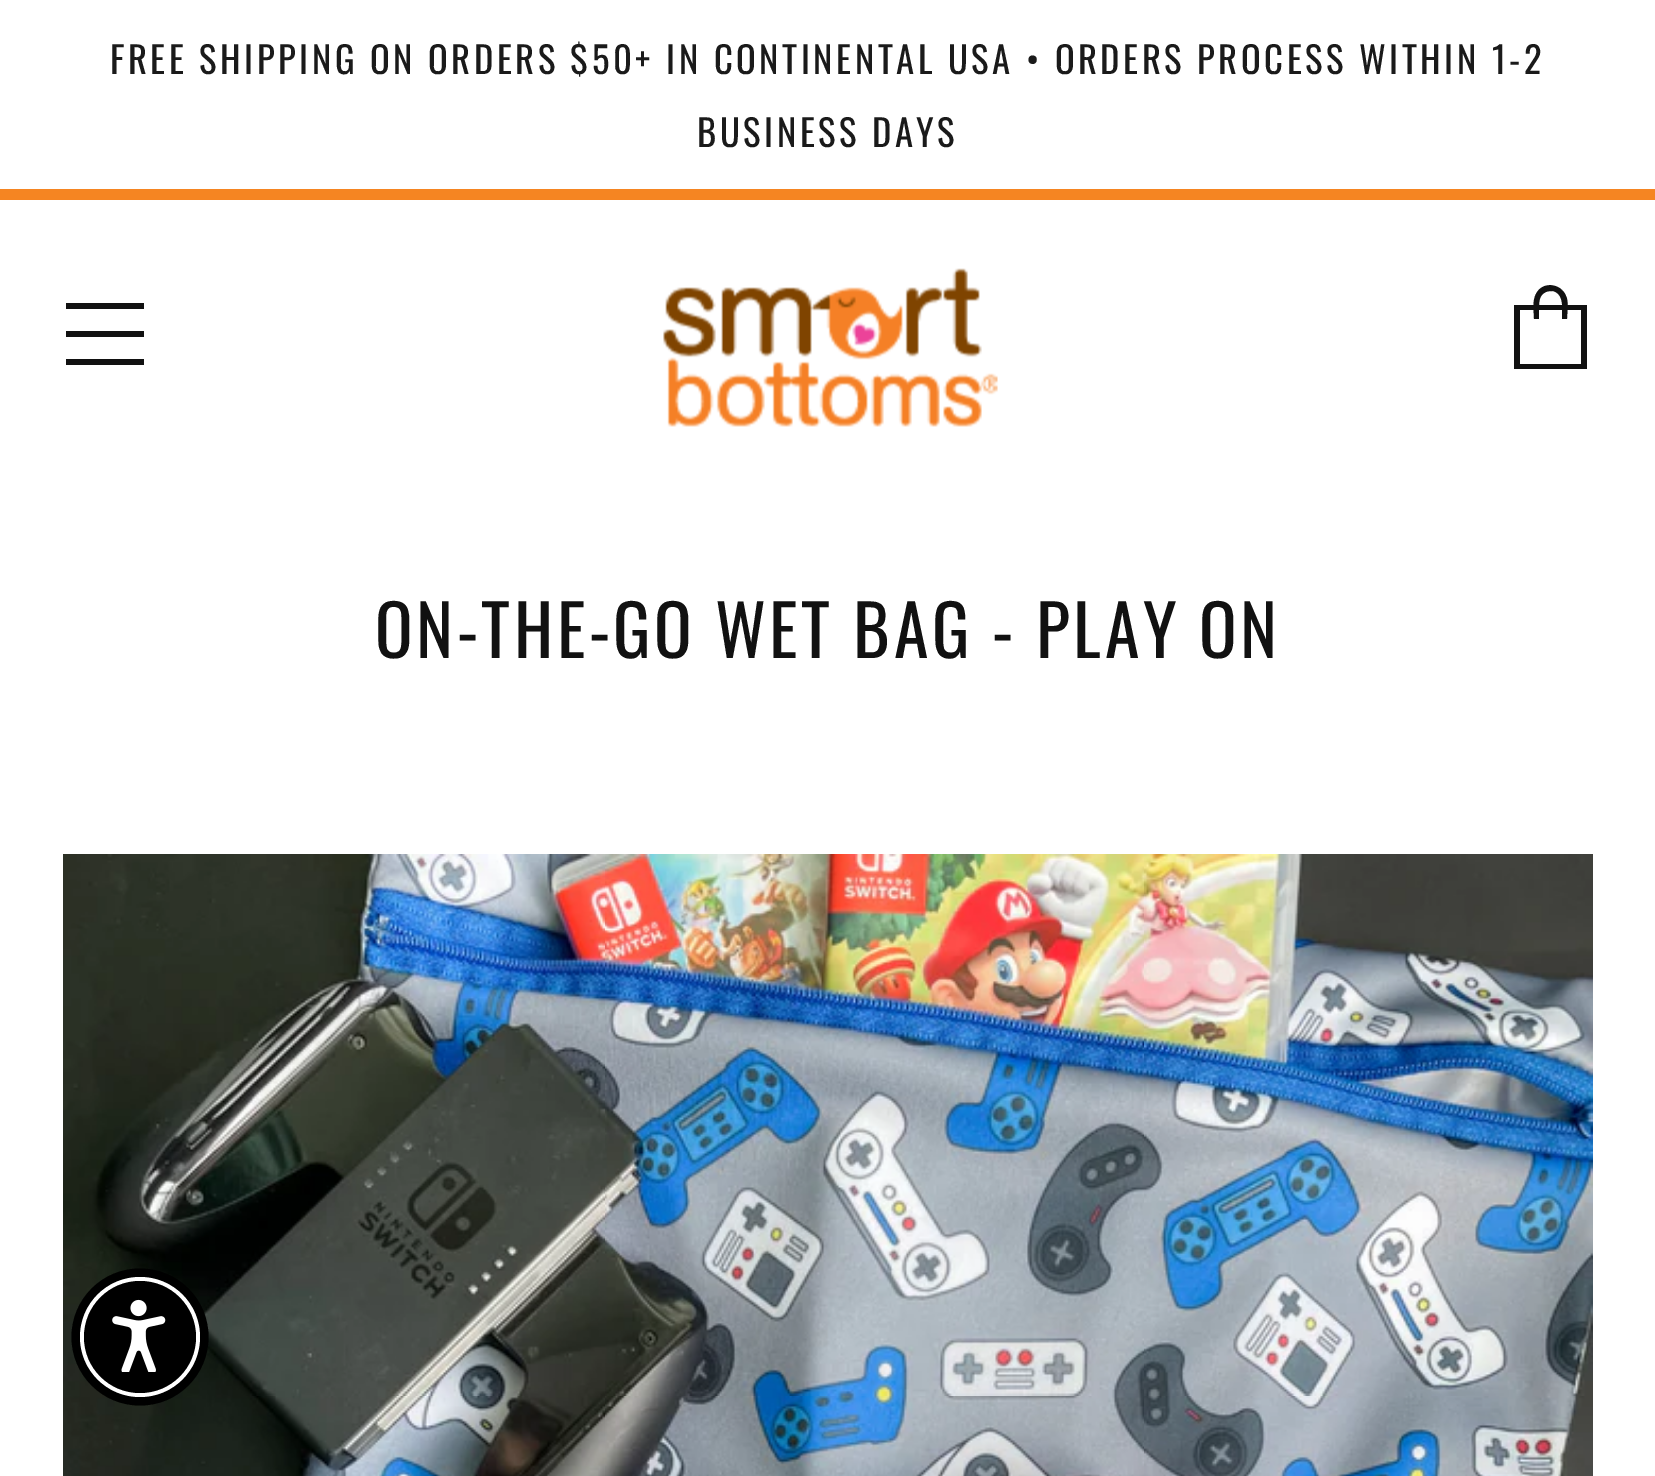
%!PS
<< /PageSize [1655 1476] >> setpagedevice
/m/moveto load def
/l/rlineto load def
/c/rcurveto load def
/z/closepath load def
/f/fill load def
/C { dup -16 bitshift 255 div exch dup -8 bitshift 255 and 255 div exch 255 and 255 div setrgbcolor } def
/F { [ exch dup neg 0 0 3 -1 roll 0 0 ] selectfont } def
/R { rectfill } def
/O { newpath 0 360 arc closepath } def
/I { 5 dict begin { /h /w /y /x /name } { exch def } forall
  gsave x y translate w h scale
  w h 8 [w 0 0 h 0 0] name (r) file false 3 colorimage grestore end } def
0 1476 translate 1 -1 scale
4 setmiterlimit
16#FFFFFF C
0 0 1655 1476 R
/Oswald-Regular 36.75 F
16#1A1A1A C
110 74 m 3.5 0 (FREE SHIPPING ON ORDERS $50+ IN CONTINENTAL USA • ORDERS PROCESS WITHIN 1-2) ashow
697 147 m 3.5 0 (BUSINESS DAYS) ashow
16#F58522 C
0 189 1655 11 R
16#111111 C
66 309 m 78 0 l 0 -6 l -78 0 l z 66 365 m 78 0 l 0 -6 l -78 0 l z 66 337 m 78 0 l 0 -6 l -78 0 l z f
(1.rgb) 663 268 335 159 I
1520 364 m 61 0 l 0 -54 l -61 0 l z 1514 305 m 73 0 l 0 64 l -73 0 l z 1539 319 m -5 0 l 0 -7 -2 -18 2 -25 c 6 -13 25 -11 30 2 c 3 6 1 17 1 23 c -5 0 l 0 -5 1 -15 -1 -20 c -1 -4 -4 -7 -8 -8 c -2 0 -5 0 -7 1 c -7 3 -7 10 -7 16 c z f
/Oswald-Regular 70 F
375 658 m 3.5 0 (ON-THE-GO WET BAG - PLAY ON) ashow
(2.rgb) 63 854 1530 622 I
16#000000 C
140 1337 68.5 O f
16#FFFFFF C
140 1337 60 O f
16#000000 C
140 1337 56 O f
(3.rgb) 112 1299 54 73 I
showpage
